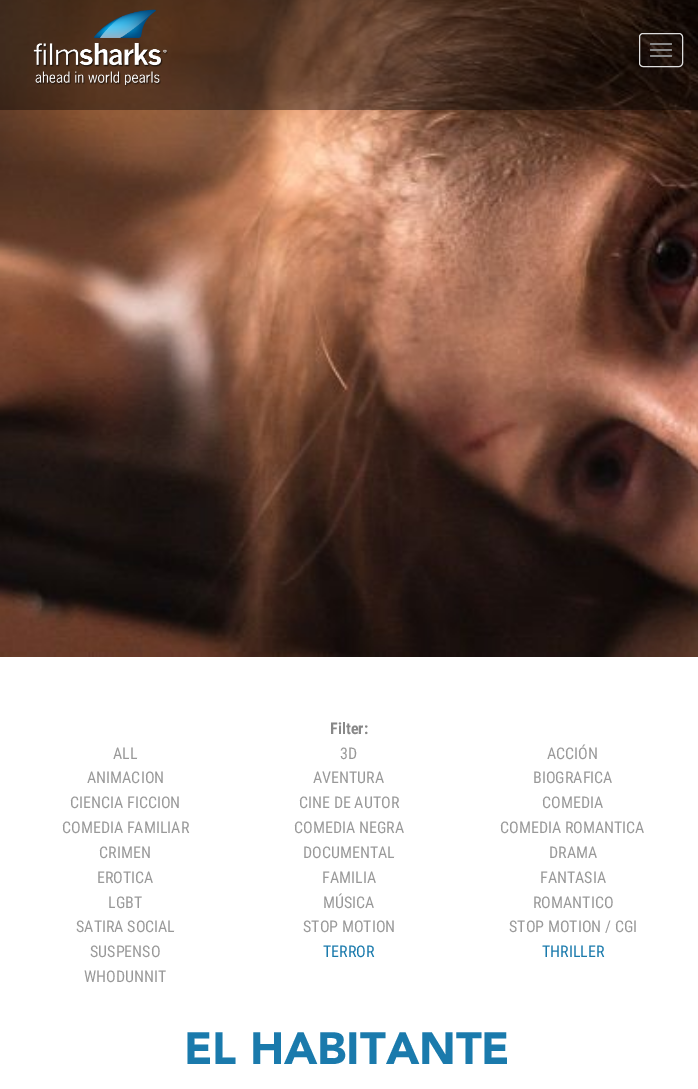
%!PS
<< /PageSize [698 1089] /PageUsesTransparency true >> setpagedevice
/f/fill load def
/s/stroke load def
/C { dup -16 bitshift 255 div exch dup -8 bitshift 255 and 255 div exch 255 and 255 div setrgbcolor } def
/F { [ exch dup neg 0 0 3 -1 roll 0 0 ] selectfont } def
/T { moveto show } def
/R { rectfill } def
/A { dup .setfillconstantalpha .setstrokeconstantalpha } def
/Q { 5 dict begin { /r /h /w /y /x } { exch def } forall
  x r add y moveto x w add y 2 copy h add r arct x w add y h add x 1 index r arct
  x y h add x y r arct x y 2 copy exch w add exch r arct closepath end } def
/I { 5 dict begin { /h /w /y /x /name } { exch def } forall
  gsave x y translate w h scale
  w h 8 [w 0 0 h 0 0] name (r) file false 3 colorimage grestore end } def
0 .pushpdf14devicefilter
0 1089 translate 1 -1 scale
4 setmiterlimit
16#FFFFFF C
0 0 698 1089 R
(1.rgb) 0 0 698 657 I
0.41 A
16#000000 C
0 0 698 110 R
1 A
(2.rgb) 33 9 135 78 I
16#DDDDDD C
639.5 33.5 43 33 3.5 Q s
16#888888 C
650 43 22 2 1 Q f
650 49 22 2 1 Q f
650 55 22 2 1 Q f
/RobotoCondensed-Bold 16 F
(Filter:) 330 734 T
/RobotoCondensed-Regular 16 F
16#999999 C
(ALL) 113 759 T
(3D) 340 759 T
(ACCIÓN) 547 759 T
(ANIMACION) 87 783 T
(AVENTURA) 313 783 T
(BIOGRAFICA) 533 783 T
(CIENCIA FICCION) 70 808 T
(CINE DE AUTOR) 299 808 T
(COMEDIA) 542 808 T
(COMEDIA FAMILIAR) 62 833 T
(COMEDIA NEGRA) 294 833 T
(COMEDIA ROMANTICA) 500 833 T
(CRIMEN) 99 858 T
(DOCUMENTAL) 303 858 T
(DRAMA) 549 858 T
(EROTICA) 97 883 T
(FAMILIA) 322 883 T
(FANTASIA) 540 883 T
(LGBT) 108 908 T
(MÚSICA) 323 908 T
(ROMANTICO) 533 908 T
(SATIRA SOCIAL) 76 932 T
(STOP MOTION) 303 932 T
(STOP MOTION / CGI) 509 932 T
(SUSPENSO) 90 957 T
16#1A7AAC C
(TERROR) 323 957 T
(THRILLER) 542 957 T
16#999999 C
(WHODUNNIT) 84 982 T
/Avenir-Black 45 F
16#1A7AAC C
(EL HABITANTE) 184 1064 T
.poppdf14devicefilter showpage
